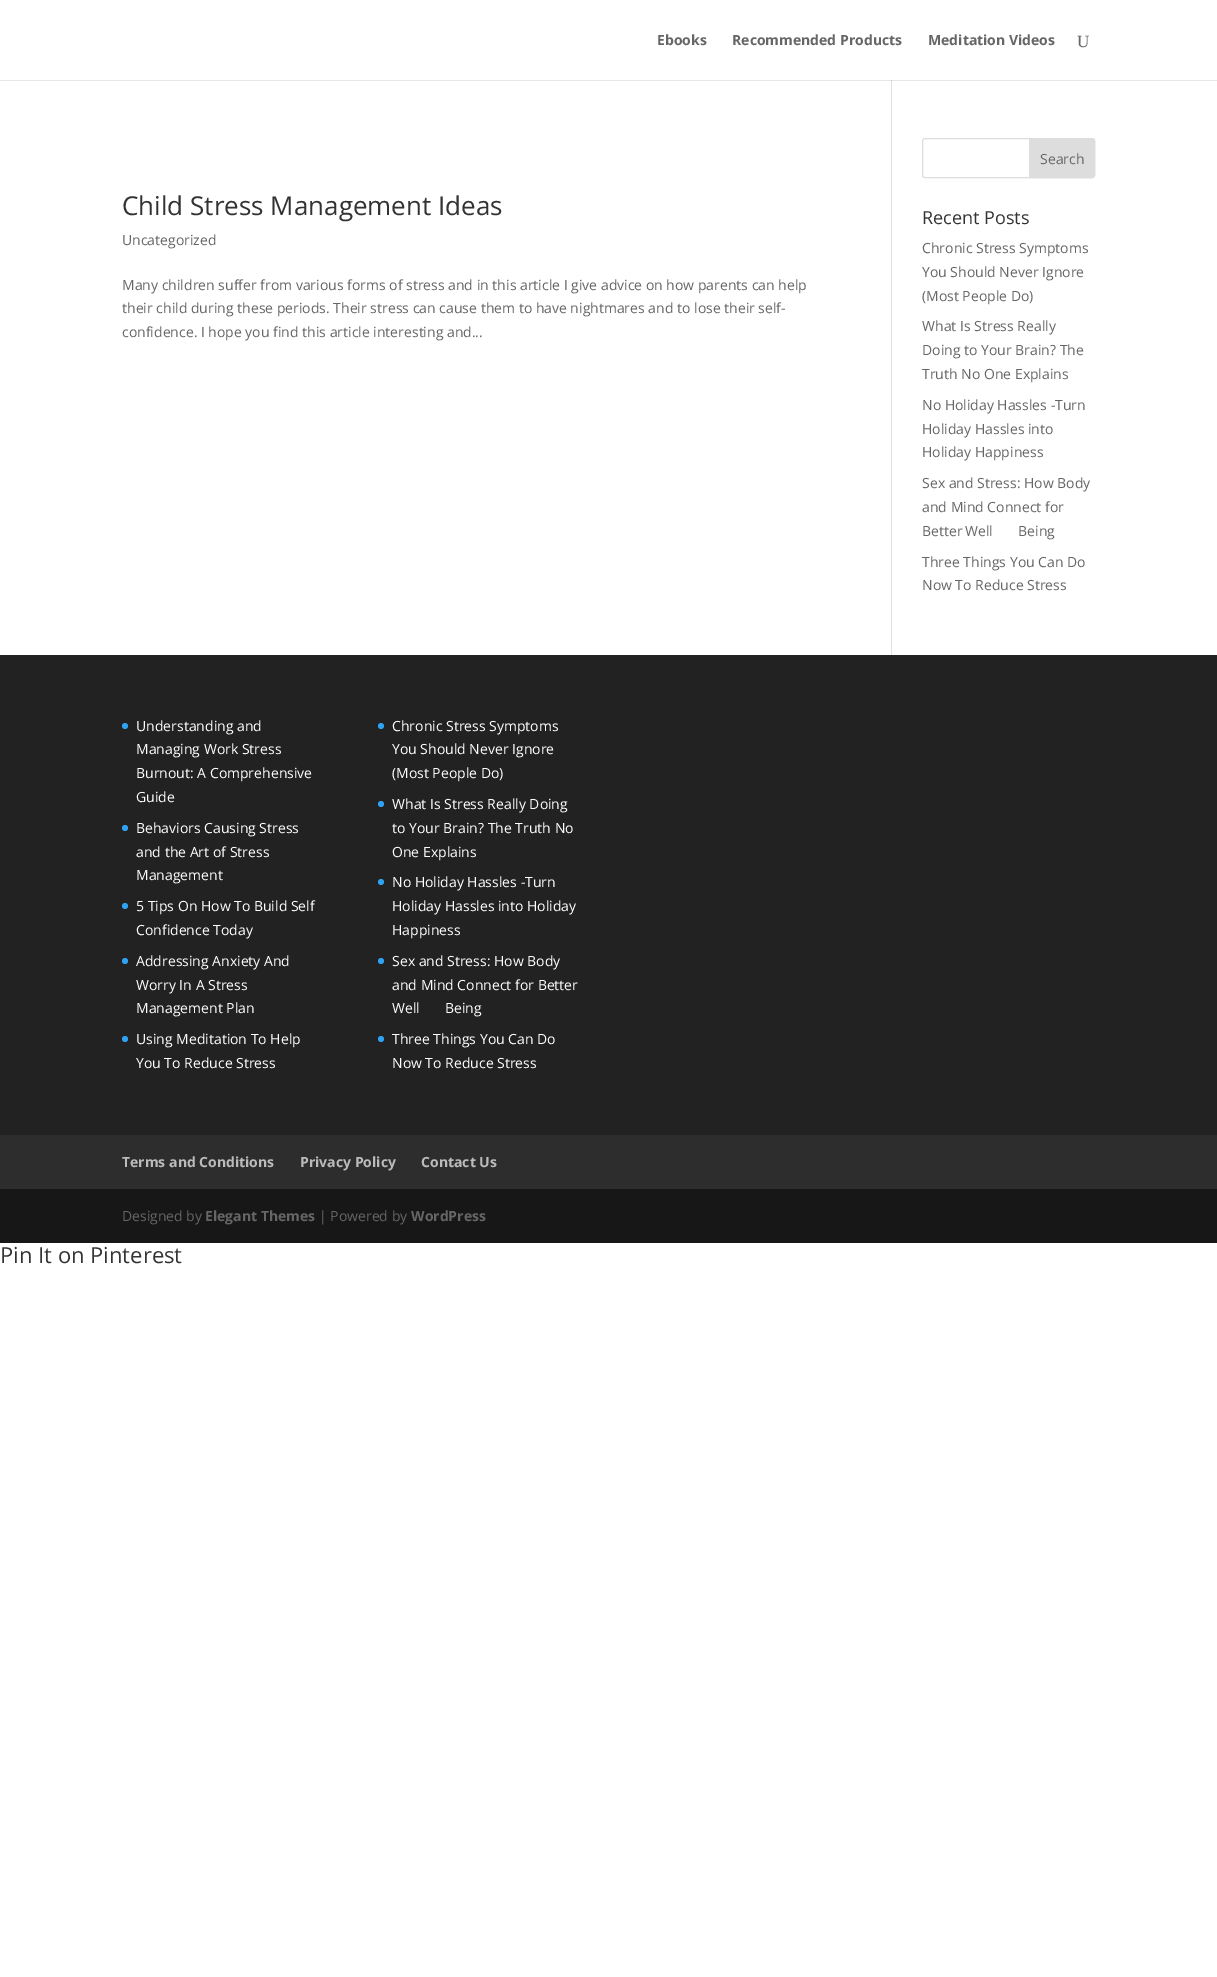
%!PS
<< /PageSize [1217 1977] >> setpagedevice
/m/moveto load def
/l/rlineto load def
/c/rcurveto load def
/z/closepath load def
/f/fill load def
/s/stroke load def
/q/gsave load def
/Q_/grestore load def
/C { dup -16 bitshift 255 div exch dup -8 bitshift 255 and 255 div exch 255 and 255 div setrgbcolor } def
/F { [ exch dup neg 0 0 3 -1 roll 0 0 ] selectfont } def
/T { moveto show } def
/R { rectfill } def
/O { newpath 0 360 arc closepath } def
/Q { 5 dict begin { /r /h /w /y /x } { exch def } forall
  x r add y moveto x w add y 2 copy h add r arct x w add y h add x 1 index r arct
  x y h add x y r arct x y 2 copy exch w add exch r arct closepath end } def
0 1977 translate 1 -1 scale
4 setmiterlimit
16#FFFFFF C
0 0 1217 1977 R
16#E6E6E6 C
0 80 1217 1 R
/OpenSans-Bold 14 F
16#666666 C
(Ebooks) 657 45 T
(Recommended Products) 732 45 T
(Meditation Videos) 928 45 T
/LiberationSerif-Regular 17 F
(U) 1077 47 T
16#E2E2E2 C
891 80 1 575 R
16#CBCBCB C
891 80 1 1 R
/OpenSans-Regular 26 F
16#333333 C
(Child Stress Management Ideas) 122 215 T
/OpenSans-Regular 14 F
16#666666 C
(Uncategorized) 122 245 T
(Many children suffer from various forms of stress and in this article I give advice on how parents can help) 122 290 T
(their child during these periods. Their stress can cause them to have nightmares and to lose their self-) 122 313 T
(confidence. I hope you find this article interesting and...) 122 337 T
16#DDDDDD C
922.5 138.5 172 39 2.5 Q s
1029.5 138.5 m 62.5 0 l 1.5 0 2.5 1 2.5 2.5 c 0 34 l 0 1.5 -1 2.5 -2.5 2.5 c -62.5 0 l z q f Q_
s
16#666666 C
(Search) 1040 164 T
/OpenSans-Regular 18 F
16#333333 C
(Recent Posts) 922 224 T
/OpenSans-Regular 14 F
16#666666 C
(Chronic Stress Symptoms) 922 253 T
(You Should Never Ignore) 922 277 T
(\(Most People Do\)) 922 301 T
(What Is Stress Really) 922 331 T
(Doing to Your Brain? The) 922 355 T
(Truth No One Explains) 922 379 T
(No Holiday Hassles -Turn) 922 410 T
(Holiday Hassles into) 922 434 T
(Holiday Happiness) 922 457 T
(Sex and Stress: How Body) 922 488 T
(and Mind Connect for) 922 512 T
922 536 m -1 0 32 (Better Well‑Being) widthshow
(Three Things You Can Do) 922 567 T
(Now To Reduce Stress) 922 590 T
16#222222 C
0 655 1217 480 R
16#2EA3F2 C
125 726 3 O f
16#FFFFFF C
(Understanding and) 136 731 T
(Managing Work Stress) 136 754 T
(Burnout: A Comprehensive) 136 778 T
(Guide) 136 802 T
16#2EA3F2 C
125 828 3 O f
16#FFFFFF C
(Behaviors Causing Stress) 136 833 T
(and the Art of Stress) 136 857 T
(Management) 136 880 T
16#2EA3F2 C
125 906 3 O f
16#FFFFFF C
(5 Tips On How To Build Self) 136 911 T
(Confidence Today) 136 935 T
16#2EA3F2 C
125 961 3 O f
16#FFFFFF C
(Addressing Anxiety And) 136 966 T
(Worry In A Stress) 136 990 T
(Management Plan) 136 1013 T
16#2EA3F2 C
125 1039 3 O f
16#FFFFFF C
(Using Meditation To Help) 136 1044 T
(You To Reduce Stress) 136 1068 T
16#2EA3F2 C
381 726 3 O f
16#FFFFFF C
(Chronic Stress Symptoms) 392 731 T
(You Should Never Ignore) 392 754 T
(\(Most People Do\)) 392 778 T
16#2EA3F2 C
381 804 3 O f
16#FFFFFF C
(What Is Stress Really Doing) 392 809 T
(to Your Brain? The Truth No) 392 833 T
(One Explains) 392 857 T
16#2EA3F2 C
381 882 3 O f
16#FFFFFF C
(No Holiday Hassles -Turn) 392 887 T
(Holiday Hassles into Holiday) 392 911 T
(Happiness) 392 935 T
16#2EA3F2 C
381 961 3 O f
16#FFFFFF C
(Sex and Stress: How Body) 392 966 T
(and Mind Connect for Better) 392 990 T
(Well‑Being) 392 1013 T
16#2EA3F2 C
381 1039 3 O f
16#FFFFFF C
(Three Things You Can Do) 392 1044 T
(Now To Reduce Stress) 392 1068 T
16#2D2D2D C
0 1135 1217 54 R
/OpenSans-Bold 14 F
16#BBBBBB C
(Terms and Conditions) 122 1167 T
(Privacy Policy) 300 1167 T
(Contact Us) 421 1167 T
16#171717 C
0 1189 1217 54 R
/OpenSans-Regular 14 F
16#666666 C
(Designed by) 122 1221 T
/OpenSans-Bold 14 F
(Elegant Themes) 205 1221 T
/OpenSans-Regular 14 F
(| Powered by) 319 1221 T
/OpenSans-Bold 14 F
(WordPress) 411 1221 T
/OpenSans-Regular 22 F
16#333333 C
(Pin It on Pinterest) 0 1263 T
showpage
